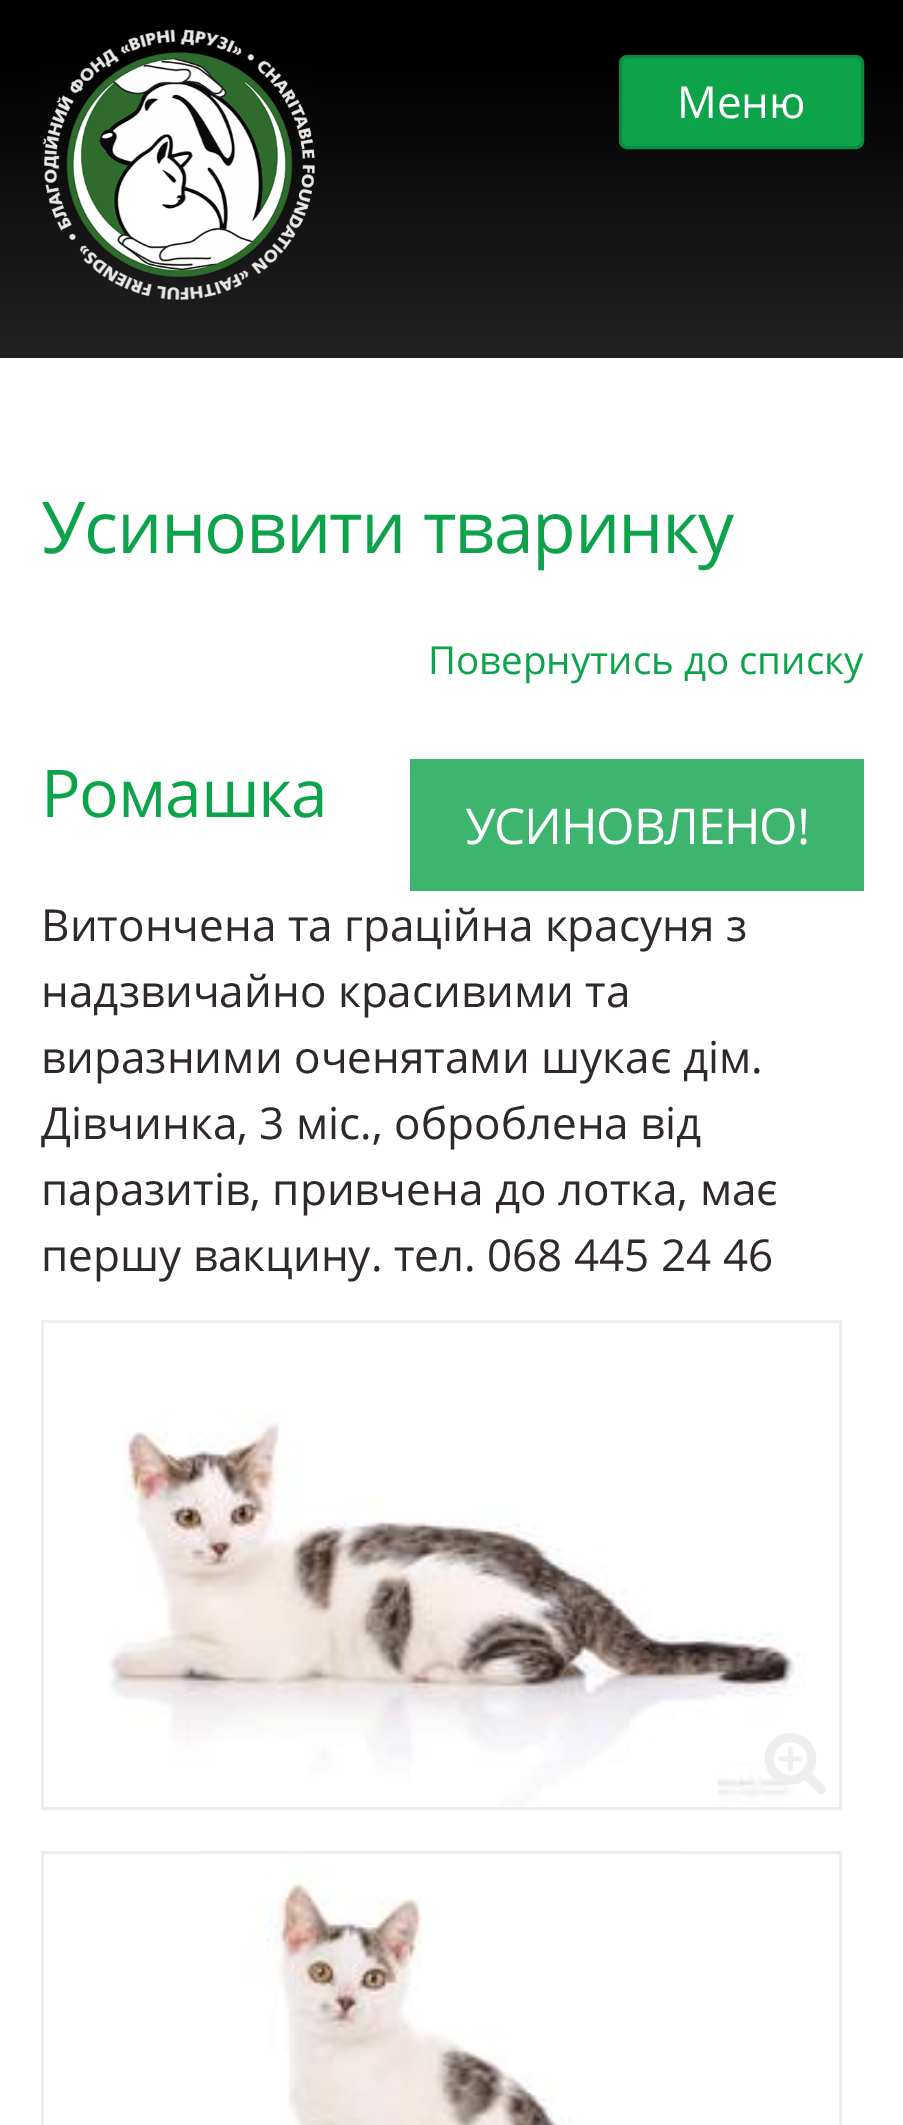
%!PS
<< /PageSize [903 2125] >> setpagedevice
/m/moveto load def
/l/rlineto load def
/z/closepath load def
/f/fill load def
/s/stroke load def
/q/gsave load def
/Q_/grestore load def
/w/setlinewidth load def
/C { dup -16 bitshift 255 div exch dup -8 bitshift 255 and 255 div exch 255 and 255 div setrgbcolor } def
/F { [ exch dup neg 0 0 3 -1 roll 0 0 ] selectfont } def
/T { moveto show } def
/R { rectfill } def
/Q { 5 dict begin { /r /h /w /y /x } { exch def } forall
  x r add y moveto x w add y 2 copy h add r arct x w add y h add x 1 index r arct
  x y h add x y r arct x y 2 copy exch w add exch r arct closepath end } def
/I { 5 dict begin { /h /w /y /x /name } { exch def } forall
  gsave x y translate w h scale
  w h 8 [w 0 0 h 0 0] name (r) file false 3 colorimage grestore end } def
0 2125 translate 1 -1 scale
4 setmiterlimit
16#FFFFFF C
0 0 903 2125 R
q 0 0 m 903 0 l 0 358 l -903 0 l z clip newpath
<< /ShadingType 2 /ColorSpace /DeviceRGB /Coords [452 0 452 358] /Extend [true true] /Function << /FunctionType 3 /Domain [0 1] /Functions [<< /FunctionType 2 /Domain [0 1] /C0 [0 0 0] /C1 [0 0 0] /N 1 >> << /FunctionType 2 /Domain [0 1] /C0 [0 0 0] /C1 [.133 .133 .133] /N 1 >>] /Bounds [.15] /Encode [0 1 0 1] >> >> shfill Q_
(1.rgb) 42 29 273 271 I
16#0CA34A C
620.5 56.5 242 91 6.5 Q q f Q_
16#0A8B3F C
3 w
s
/OpenSans-Regular 44 F
16#FFFFFF C
(Меню) 677 118 T
/OpenSans-Regular 71.5 F
16#0CA34A C
41 553 m -1.4 0 (Усиновити тваринку) ashow
/OpenSans-Regular 38.5 F
(Повернутись до списку) 428 674 T
/OpenSans-Regular 66 F
41 817 m -1.25 0 (Ромашка) ashow
16#3DB56E C
410 759 454 132 R
/OpenSans-Regular 49.5 F
16#FFFFFF C
465 844 m -1.25 0 (УСИНОВЛЕНО!) ashow
/OpenSans-Regular 44 F
16#2F2929 C
(Витончена та граційна красуня з) 41 941 T
(надзвичайно красивими та) 41 1007 T
(виразними оченятами шукає дім.) 41 1073 T
(Дівчинка, 3 міс., оброблена від) 41 1139 T
(паразитів, привчена до лотка, має) 41 1205 T
(першу вакцину. тел. 068 445 24 46) 41 1271 T
16#EEEEEE C
42.5 1321.5 798 487 rectstroke
(2.rgb) 108 1411 698 395 I
(3.rgb) 764 1733 62 61 I
42.5 1852.5 798 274 rectstroke
(4.rgb) 201 1853 483 272 I
showpage
